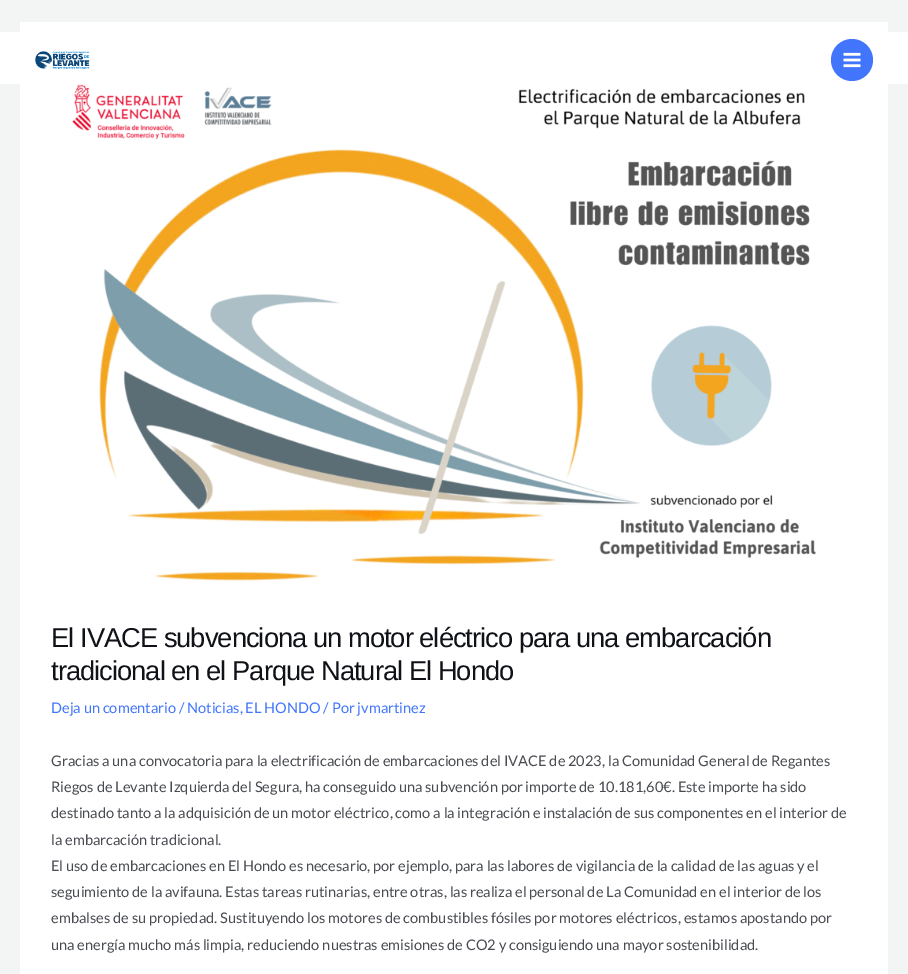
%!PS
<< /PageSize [908 974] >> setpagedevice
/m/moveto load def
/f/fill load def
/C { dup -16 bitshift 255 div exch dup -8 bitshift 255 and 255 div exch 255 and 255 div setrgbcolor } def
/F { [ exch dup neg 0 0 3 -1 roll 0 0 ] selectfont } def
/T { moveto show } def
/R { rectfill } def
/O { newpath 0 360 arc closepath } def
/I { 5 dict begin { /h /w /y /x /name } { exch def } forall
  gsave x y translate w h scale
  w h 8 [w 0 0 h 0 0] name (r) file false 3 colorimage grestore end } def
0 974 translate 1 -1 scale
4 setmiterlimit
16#F3F5F5 C
0 0 908 974 R
16#FFFFFF C
20 22 868 952 R
0 32 908 52 R
(1.rgb) 35 51 55 18 I
16#4175FC C
852 60 21 O f
(2.rgb) 843 52 18 16 I
(3.rgb) 72 84 744 497 I
/LiberationSans-Regular 27.35 F
16#101218 C
51 647 m -1 0 (El IVACE subvenciona un motor eléctrico para una embarcación) ashow
51 680 m -1 0 (tradicional en el Parque Natural El Hondo) ashow
/Lato-Regular 14.6 F
16#4175FC C
(Deja un comentario / Noticias, EL HONDO / Por jvmartinez) 51 713 T
16#494B51 C
(Gracias a una convocatoria para la electrificación de embarcaciones del IVACE de 2023, la Comunidad General de Regantes) 51 766 T
(Riegos de Levante Izquierda del Segura, ha conseguido una subvención por importe de 10.181,60€. Este importe ha sido) 51 792 T
(destinado tanto a la adquisición de un motor eléctrico, como a la integración e instalación de sus componentes en el interior de) 51 818 T
(la embarcación tradicional.) 51 845 T
(El uso de embarcaciones en El Hondo es necesario, por ejemplo, para las labores de vigilancia de la calidad de las aguas y el) 51 871 T
(seguimiento de la avifauna. Estas tareas rutinarias, entre otras, las realiza el personal de La Comunidad en el interior de los) 51 897 T
(embalses de su propiedad. Sustituyendo los motores de combustibles fósiles por motores eléctricos, estamos apostando por) 51 923 T
(una energía mucho más limpia, reduciendo nuestras emisiones de CO2 y consiguiendo una mayor sostenibilidad.) 51 950 T
showpage
